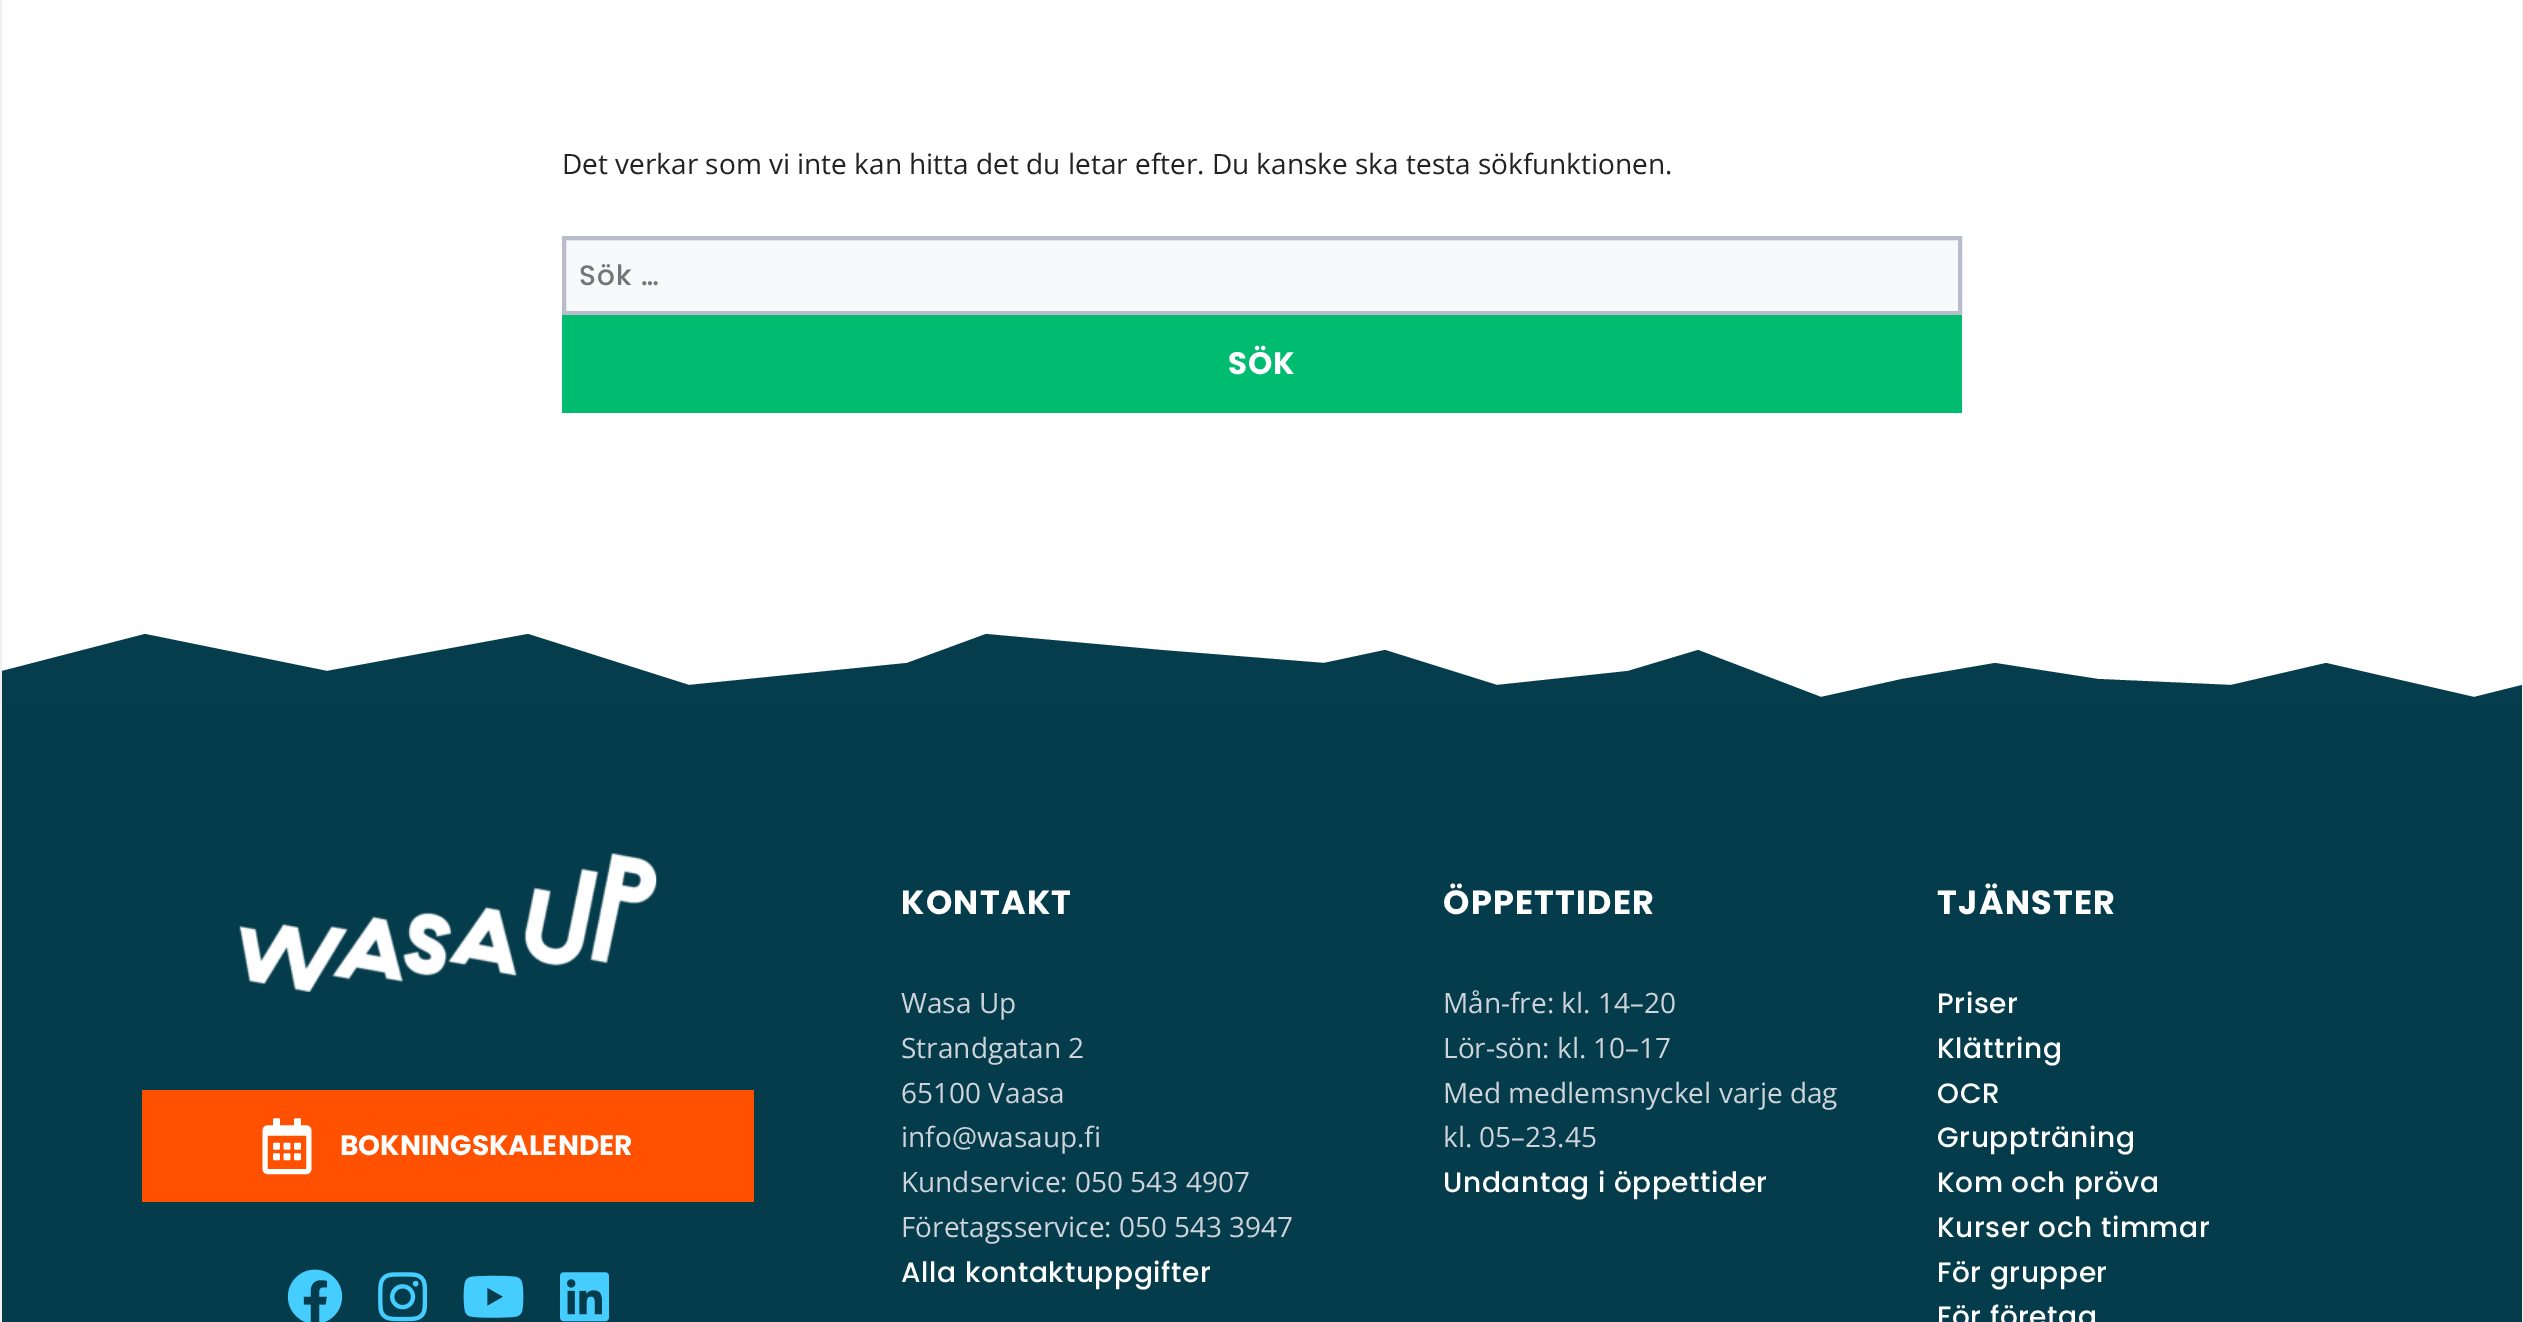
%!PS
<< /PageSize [2523 1322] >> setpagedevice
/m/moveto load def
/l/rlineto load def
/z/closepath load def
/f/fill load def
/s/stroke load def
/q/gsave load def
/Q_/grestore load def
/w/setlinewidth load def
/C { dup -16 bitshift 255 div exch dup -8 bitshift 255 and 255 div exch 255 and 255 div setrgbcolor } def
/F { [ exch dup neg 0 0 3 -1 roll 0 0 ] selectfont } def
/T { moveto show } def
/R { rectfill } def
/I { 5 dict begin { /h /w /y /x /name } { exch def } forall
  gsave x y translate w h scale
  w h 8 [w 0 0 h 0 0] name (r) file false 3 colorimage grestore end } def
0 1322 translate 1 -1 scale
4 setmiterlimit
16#F0F0F0 C
0 0 2523 1322 R
16#FFFFFF C
2 0 2520 697 R
/OpenSans-Regular 28 F
16#222222 C
(Det verkar som vi inte kan hitta det du letar efter. Du kanske ska testa sökfunktionen.) 562 174 T
16#F8F9FA C
564 238 m 1396 0 l 0 75 l -1396 0 l z q f Q_
16#B8BCCC C
4 w
s
/Poppins-Medium 28 F
16#757575 C
579 285 m 1 0 (Sök …) ashow
16#00BC70 C
562 315 1400 98 R
/Poppins-Bold 31 F
16#FFFFFF C
1228 374 m 1 0 (SÖK) ashow
q
2 634 2520 73 rectclip
16#063D4C C
2 671 m 143 -37 l 182 37 l 201 -37 l 161 51 l 218 -22 l 79 -29 l 175 16 l 163 13 l 61 -13 l 112 35 l 131 -14 l 70 -21 l 123 47 l 81 -18 l 93 -16 l 103 16 l 133 6 l 95 -22 l 148 34 l 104 -26 l 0 246 l -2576 0 l z f
Q_
16#053C4C C
2 707 2520 615 R
(1.rgb) 239 853 418 139 I
16#FF5100 C
142 1090 612 112 R
(2.rgb) 262 1118 50 57 I
/Poppins-Bold 28 F
16#FFFFFF C
(BOKNINGSKALENDER) 340 1155 T
(3.rgb) 287 1269 56 53 I
(4.rgb) 378 1272 50 50 I
(5.rgb) 463 1275 61 43 I
(6.rgb) 560 1272 49 50 I
/Poppins-Bold 33.5 F
901 914 m 1.25 0 (KONTAKT) ashow
/OpenSans-Regular 28 F
16#CED4DA C
(Wasa Up) 901 1013 T
(Strandgatan 2) 901 1058 T
(65100 Vaasa) 901 1103 T
(info@wasaup.fi) 901 1147 T
(Kundservice: 050 543 4907) 901 1192 T
(Företagsservice: 050 543 3947) 901 1237 T
/Poppins-Medium 28 F
16#FFFFFF C
901 1282 m .6 0 (Alla kontaktuppgifter) ashow
/Poppins-Bold 33.5 F
1443 914 m 1.25 0 (ÖPPETTIDER) ashow
/OpenSans-Regular 28 F
16#CED4DA C
(Mån-fre: kl. 14–20) 1443 1013 T
(Lör-sön: kl. 10–17) 1443 1058 T
(Med medlemsnyckel varje dag) 1443 1103 T
(kl. 05–23.45) 1443 1147 T
/Poppins-Medium 28 F
16#FFFFFF C
1443 1192 m .6 0 (Undantag i öppettider) ashow
/Poppins-Bold 33.5 F
1937 914 m 1.25 0 (TJÄNSTER) ashow
/Poppins-Medium 28 F
1937 1013 m .6 0 (Priser) ashow
1937 1058 m .6 0 (Klättring) ashow
1937 1103 m .6 0 (OCR) ashow
1937 1147 m .6 0 (Gruppträning) ashow
1937 1192 m .6 0 (Kom och pröva) ashow
1937 1237 m .6 0 (Kurser och timmar) ashow
1937 1282 m .6 0 (För grupper) ashow
1937 1326 m .6 0 (För företag) ashow
showpage
